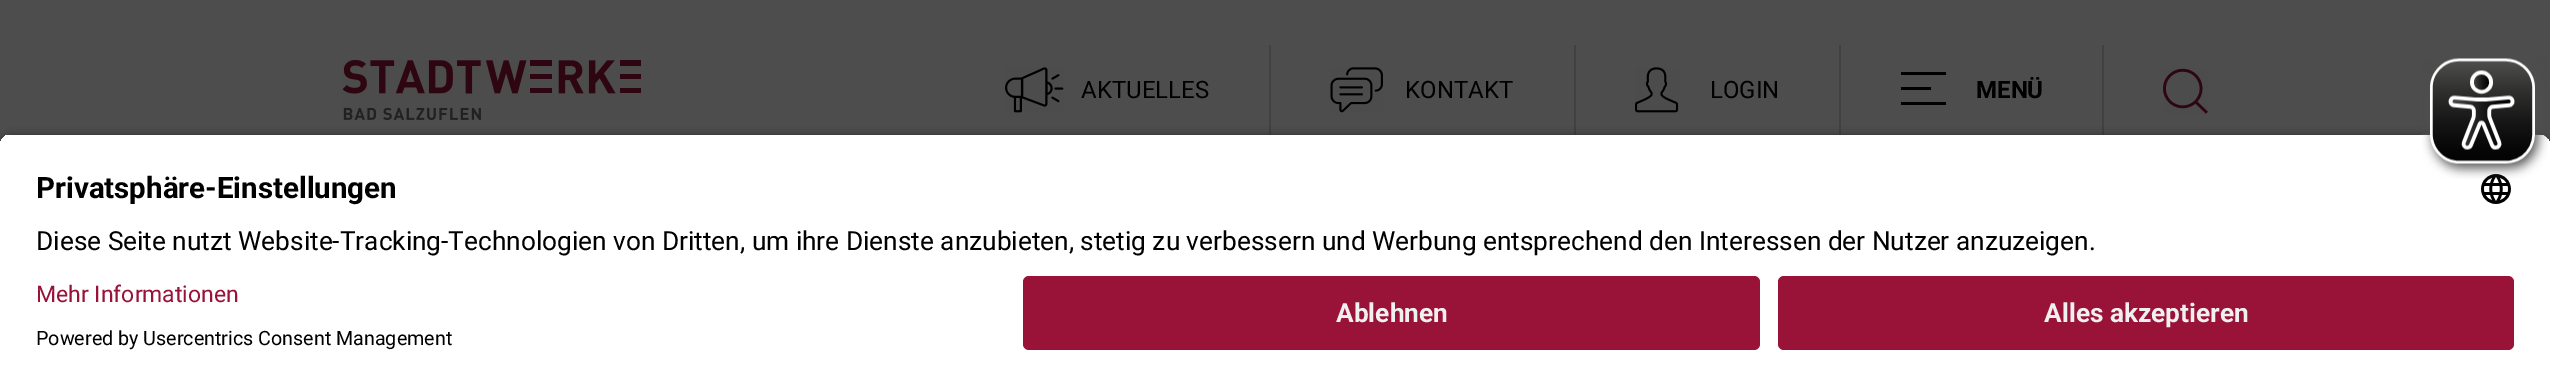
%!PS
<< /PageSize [2550 385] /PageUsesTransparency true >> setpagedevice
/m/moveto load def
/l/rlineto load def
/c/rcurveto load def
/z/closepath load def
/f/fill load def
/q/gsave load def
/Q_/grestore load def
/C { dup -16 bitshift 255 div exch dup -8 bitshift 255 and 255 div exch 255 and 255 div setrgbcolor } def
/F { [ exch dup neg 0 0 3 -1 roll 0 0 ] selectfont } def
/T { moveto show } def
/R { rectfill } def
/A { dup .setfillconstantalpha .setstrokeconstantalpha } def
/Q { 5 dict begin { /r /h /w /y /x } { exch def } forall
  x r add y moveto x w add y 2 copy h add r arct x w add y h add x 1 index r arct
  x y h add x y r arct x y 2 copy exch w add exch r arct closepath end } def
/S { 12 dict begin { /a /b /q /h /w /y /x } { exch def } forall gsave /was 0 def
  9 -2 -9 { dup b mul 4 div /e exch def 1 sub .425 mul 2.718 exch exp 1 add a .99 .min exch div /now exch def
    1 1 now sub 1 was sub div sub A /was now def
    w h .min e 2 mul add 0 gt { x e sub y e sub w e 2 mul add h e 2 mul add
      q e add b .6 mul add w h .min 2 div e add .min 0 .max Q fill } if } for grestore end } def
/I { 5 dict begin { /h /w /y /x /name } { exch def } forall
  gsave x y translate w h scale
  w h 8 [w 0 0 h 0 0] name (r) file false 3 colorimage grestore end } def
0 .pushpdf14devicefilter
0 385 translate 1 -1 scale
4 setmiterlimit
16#4D4D4D C
0 0 2550 385 R
(1.rgb) 342 60 299 60 I
16#414141 C
1269 45 2 90 R
(2.rgb) 1005 67 59 46 I
/Roboto-Regular 24 F
16#000000 C
(AKTUELLES) 1081 98 T
16#414141 C
1574 45 2 90 R
(3.rgb) 1330 67 53 46 I
16#000000 C
(KONTAKT) 1405 98 T
16#414141 C
1839 45 2 90 R
(4.rgb) 1635 67 44 46 I
16#000000 C
(LOGIN) 1710 98 T
1901 72 45 3 R
1901 87 30 3 R
/Roboto-Bold 24 F
(MENÜ) 1976 98 T
1901 102 45 3 R
16#414141 C
2102 45 2 90 R
(5.rgb) 2163 68 45 46 I
16#000000 C
0 138 2550 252 12 5 .8 S
q
12 134 m 2526 0 l 6.5 0 12 5.5 12 12 c 0 118 l -2550 0 l 0 -118 l 0 -6.5 5.5 -12 12 -12 c z clip newpath
16#FFFFFF C
0 135 2550 129 R
Q_
(7.rgb) 2481 174 30 30 I
(6.rgb) 2422 58 126 121 I
/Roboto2-Bold 29.5 F
(Privatsphäre-Einstellungen) 36 198 T
/Roboto2-Regular 26.25 F
(Diese Seite nutzt Website-Tracking-Technologien von Dritten, um ihre Dienste anzubieten, stetig zu verbessern und Werbung entsprechend den Interessen der Nutzer anzuzeigen.) 36 250 T
16#FFFFFF C
0 264 2550 121 R
/Roboto2-Regular 23 F
16#991338 C
(Mehr Informationen) 36 302 T
/Roboto2-Regular 19.7 F
16#000000 C
(Powered by Usercentrics Consent Management) 36 345 T
16#991338 C
1023 276 737 74 6 Q f
/Roboto2-Bold 26.25 F
16#F0F0F0 C
(Ablehnen) 1336 322 T
16#991338 C
1778 276 736 74 6 Q f
16#F0F0F0 C
(Alles akzeptieren) 2044 322 T
.poppdf14devicefilter showpage
